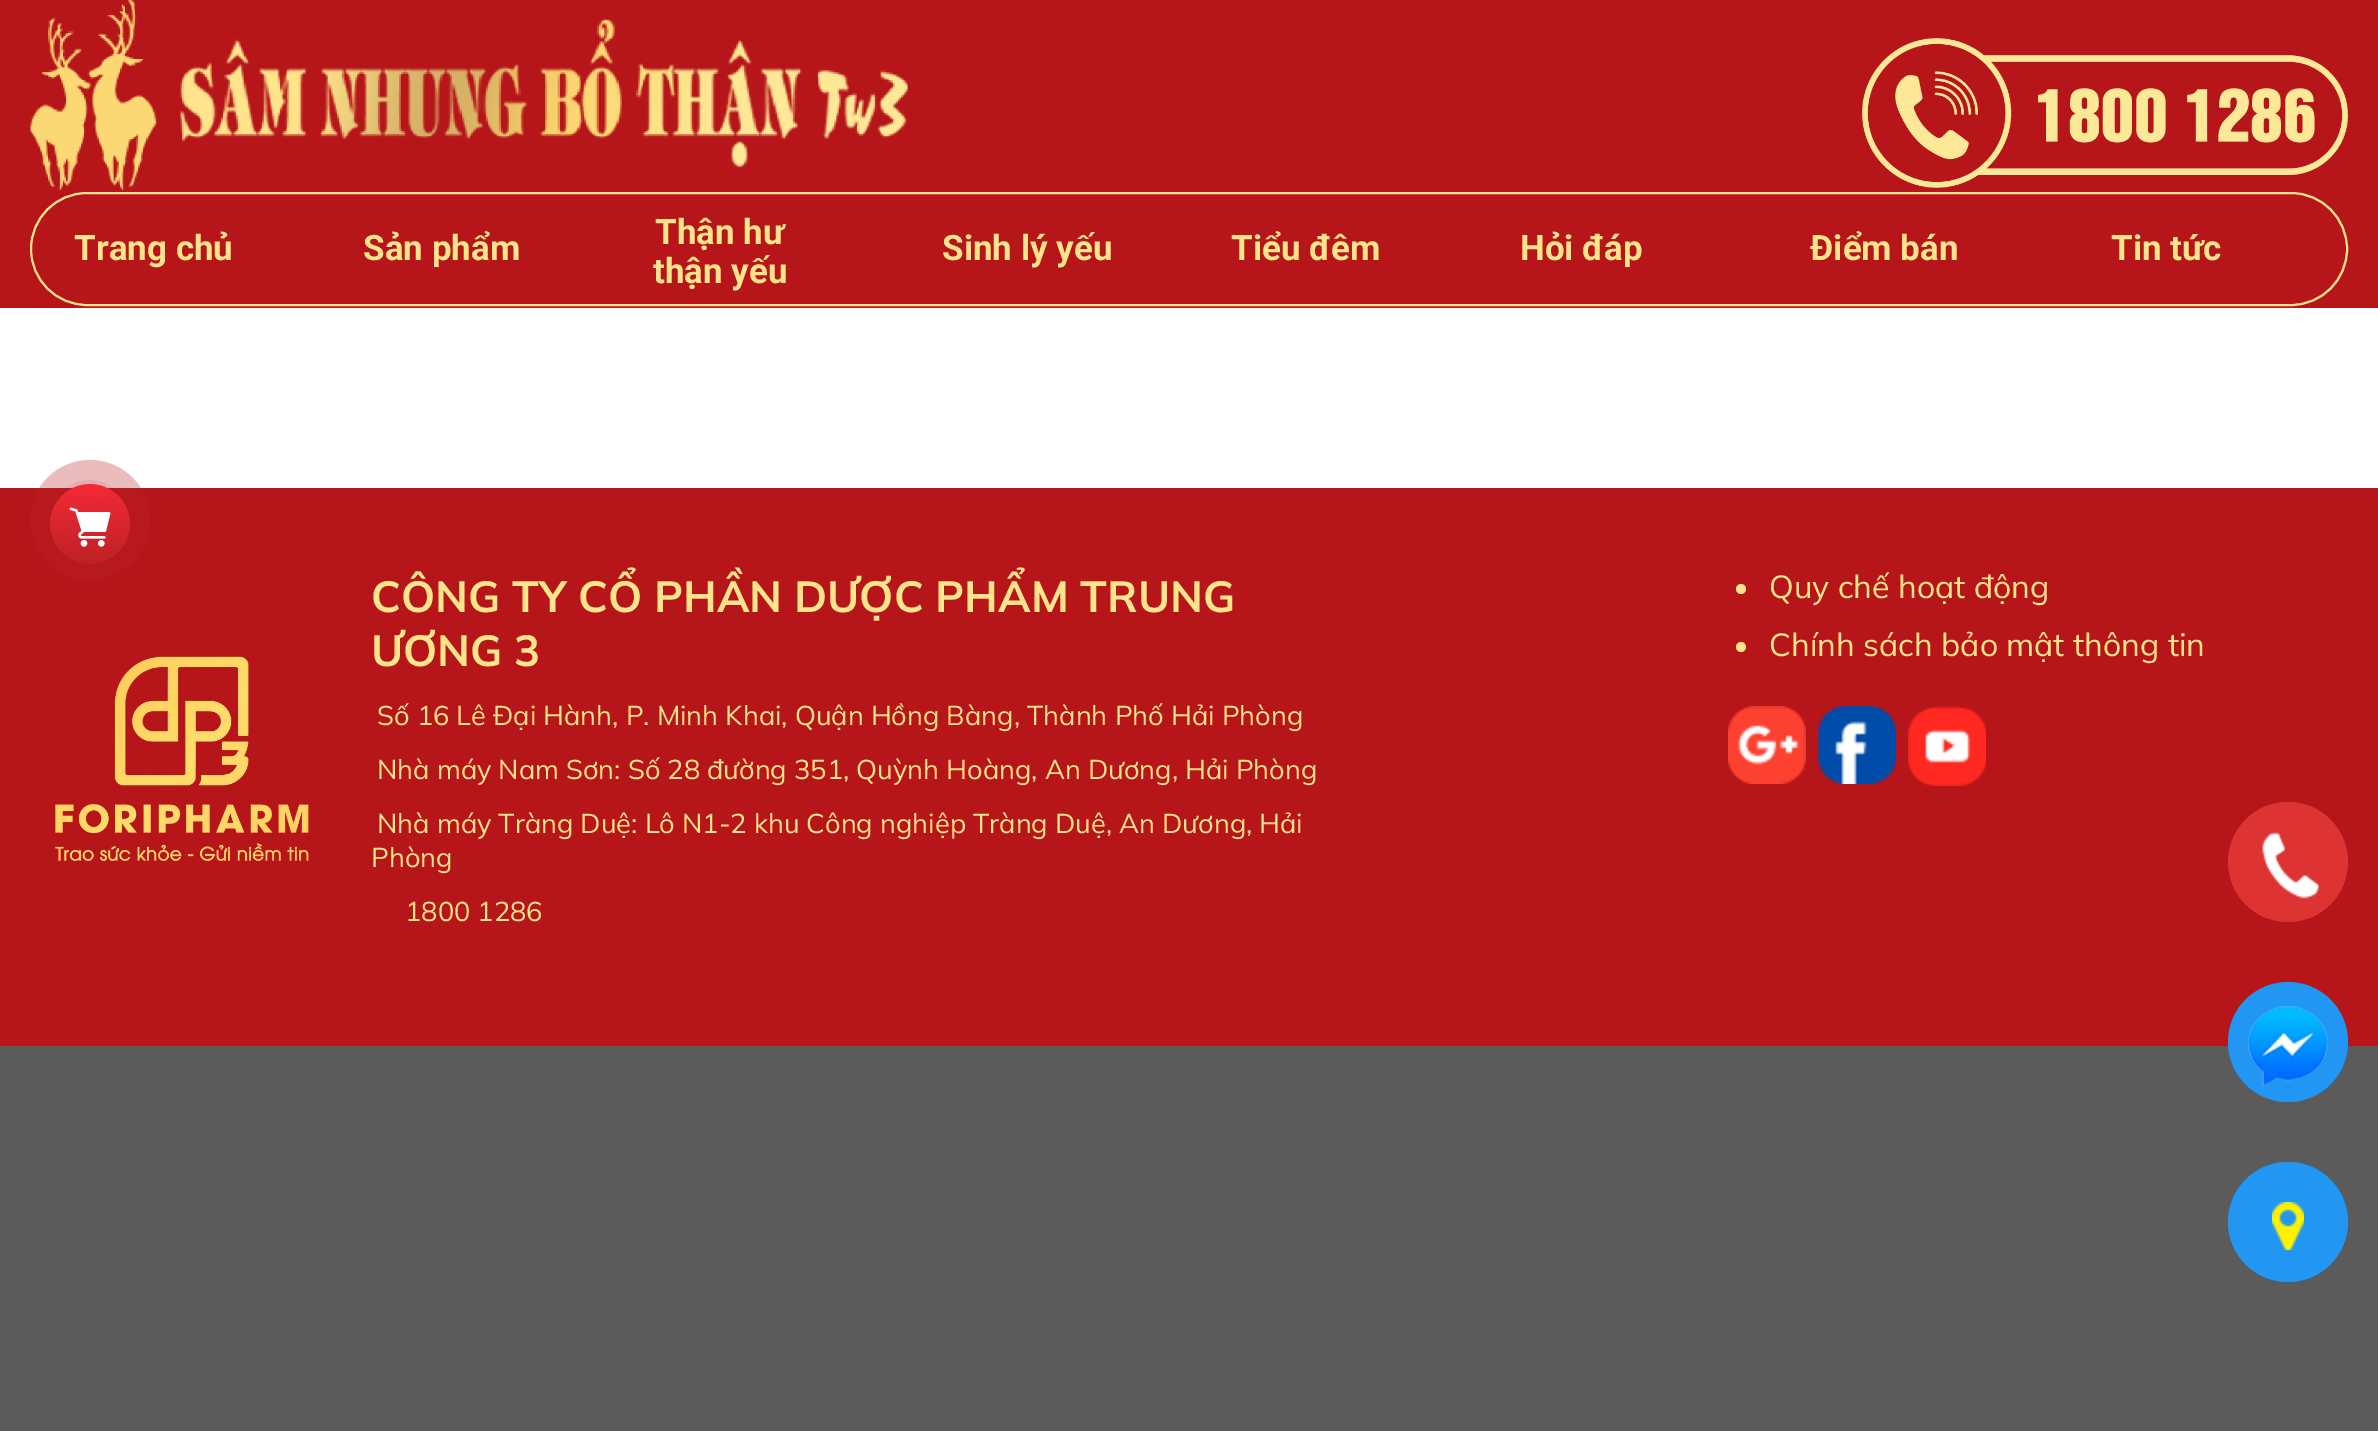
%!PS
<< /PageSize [2378 1431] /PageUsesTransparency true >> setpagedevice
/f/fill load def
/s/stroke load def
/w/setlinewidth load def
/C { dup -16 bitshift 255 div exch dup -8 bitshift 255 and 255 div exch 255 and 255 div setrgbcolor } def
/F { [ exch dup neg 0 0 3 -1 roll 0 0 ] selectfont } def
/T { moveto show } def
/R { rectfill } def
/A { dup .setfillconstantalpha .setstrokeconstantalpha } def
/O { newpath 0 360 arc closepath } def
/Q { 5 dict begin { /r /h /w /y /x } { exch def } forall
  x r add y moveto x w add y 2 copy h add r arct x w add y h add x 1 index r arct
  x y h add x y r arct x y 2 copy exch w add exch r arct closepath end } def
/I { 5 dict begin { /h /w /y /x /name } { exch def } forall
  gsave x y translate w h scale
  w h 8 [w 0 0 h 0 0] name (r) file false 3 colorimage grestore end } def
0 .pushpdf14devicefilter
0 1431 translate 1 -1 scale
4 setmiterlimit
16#5B5B5B C
0 0 2378 1431 R
16#FFFFFF C
0 308 2378 180 R
16#B6151A C
0 0 2378 308 R
(1.rgb) 30 0 878 190 I
(2.rgb) 1862 38 486 150 I
16#FEE48B C
2 w
31 193 2316 112 56 Q s
/Roboto-Bold 35 F
(Trang chủ) 74 260 T
(Sản phẩm) 363 260 T
(Thận hư) 655 244 T
(thận yếu) 653 283 T
(Sinh lý yếu) 942 260 T
(Tiểu đêm) 1231 260 T
(Hỏi đáp) 1520 260 T
(Điểm bán) 1810 260 T
(Tin tức) 2111 260 T
16#B6151A C
0 488 2378 558 R
(3.rgb) 55 656 254 205 I
/Mulish-Bold 43.5 F
16#FEE48B C
(CÔNG TY CỔ PHẦN DƯỢC PHẨM TRUNG) 371 612 T
(ƯƠNG 3) 371 666 T
/Mulish-Regular 27.2 F
(Số 16 Lê Đại Hành, P. Minh Khai, Quận Hồng Bàng, Thành Phố Hải Phòng) 377 725 T
(Nhà máy Nam Sơn: Số 28 đường 351, Quỳnh Hoàng, An Dương, Hải Phòng) 377 779 T
(Nhà máy Tràng Duệ: Lô N1-2 khu Công nghiệp Tràng Duệ, An Dương, Hải) 377 833 T
(Phòng) 371 867 T
(1800 1286) 405 921 T
1741 589 5 O f
/Mulish-Regular 32 F
(Quy chế hoạt động) 1769 598 T
1741 647 5 O f
(Chính sách bảo mật thông tin) 1769 656 T
(4.rgb) 1728 706 78 78 I
(5.rgb) 1818 706 78 78 I
(6.rgb) 1908 706 78 80 I
0.3 A
16#BD2126 C
90 520 60 O f
0.1 A
90 520 40 O f
1 A
(7.rgb) 50 484 80 80 I
16#DD3333 C
2288 862 60 O f
(8.rgb) 2262 832 57 67 I
16#2196F3 C
2288 1042 60 O f
(9.rgb) 2248 1006 80 80 I
2288 1222 60 O f
(10.rgb) 2272 1202 32 48 I
.poppdf14devicefilter showpage
